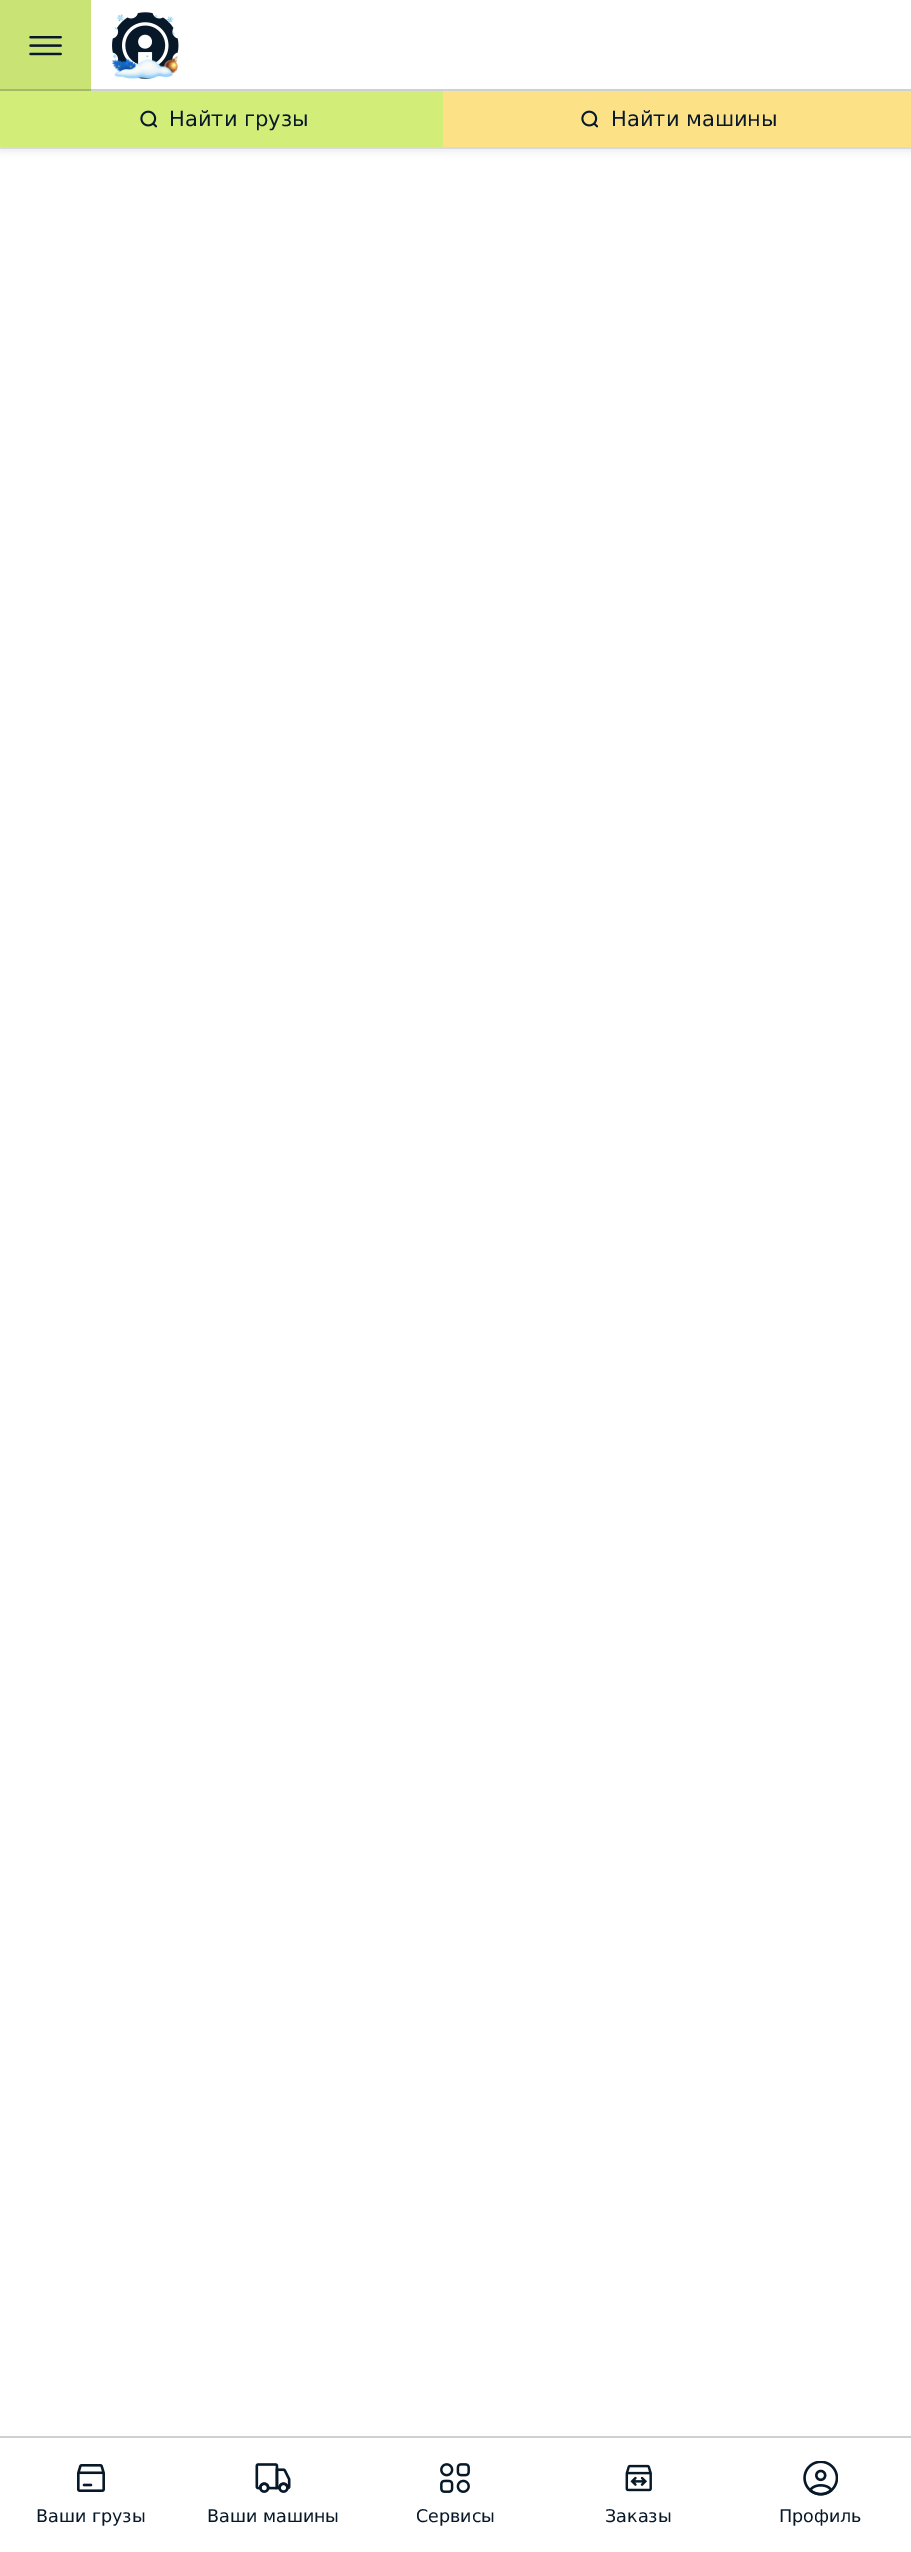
%!PS
<< /PageSize [911 2552] /PageUsesTransparency true >> setpagedevice
/C { dup -16 bitshift 255 div exch dup -8 bitshift 255 and 255 div exch 255 and 255 div setrgbcolor } def
/F { [ exch dup neg 0 0 3 -1 roll 0 0 ] selectfont } def
/T { moveto show } def
/R { rectfill } def
/A { dup .setfillconstantalpha .setstrokeconstantalpha } def
/Q { 5 dict begin { /r /h /w /y /x } { exch def } forall
  x r add y moveto x w add y 2 copy h add r arct x w add y h add x 1 index r arct
  x y h add x y r arct x y 2 copy exch w add exch r arct closepath end } def
/S { 12 dict begin { /a /b /q /h /w /y /x } { exch def } forall gsave /was 0 def
  9 -2 -9 { dup b mul 4 div /e exch def 1 sub .425 mul 2.718 exch exp 1 add a .99 .min exch div /now exch def
    1 1 now sub 1 was sub div sub A /was now def
    w h .min e 2 mul add 0 gt { x e sub y e sub w e 2 mul add h e 2 mul add
      q e add b .6 mul add w h .min 2 div e add .min 0 .max Q fill } if } for grestore end } def
/I { 5 dict begin { /h /w /y /x /name } { exch def } forall
  gsave x y translate w h scale
  w h 8 [w 0 0 h 0 0] name (r) file false 3 colorimage grestore end } def
0 .pushpdf14devicefilter
0 2552 translate 1 -1 scale
4 setmiterlimit
16#FFFFFF C
0 0 911 2552 R
16#E6E8EA C
0 147 911 2 R
16#071829 C
0 95 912 56 0 3.5 .08 S
16#CDD1D4 C
91 89 820 2 R
16#D3EE78 C
0 0 91 89 R
16#AAC368 C
0 89 91 2 R
(1.rgb) 29 36 33 20 I
0.05 A
16#071829 C
0 0 91 91 R
1 A
(2.rgb) 112 12 67 67 I
(3.rgb) 112 14 66 65 I
16#D3EE78 C
0 91 443 56 R
(4.rgb) 140 110 17 18 I
/DejaVuSans-Regular 21 F
16#071829 C
(Найти грузы) 169 126 T
16#FDE186 C
443 91 468 56 R
(5.rgb) 581 110 17 18 I
16#071829 C
(Найти машины) 611 126 T
16#CDD1D4 C
0 2436 911 2 R
(6.rgb) 77 2464 28 28 I
/DejaVuSans-Regular 17.5 F
16#071829 C
(Ваши грузы) 36 2522 T
(7.rgb) 255 2463 36 30 I
(Ваши машины) 207 2522 T
(8.rgb) 440 2463 30 30 I
(Сервисы) 416 2522 T
(9.rgb) 625 2464 27 28 I
(Заказы) 605 2522 T
(10.rgb) 803 2461 35 35 I
(Профиль) 779 2522 T
.poppdf14devicefilter showpage
